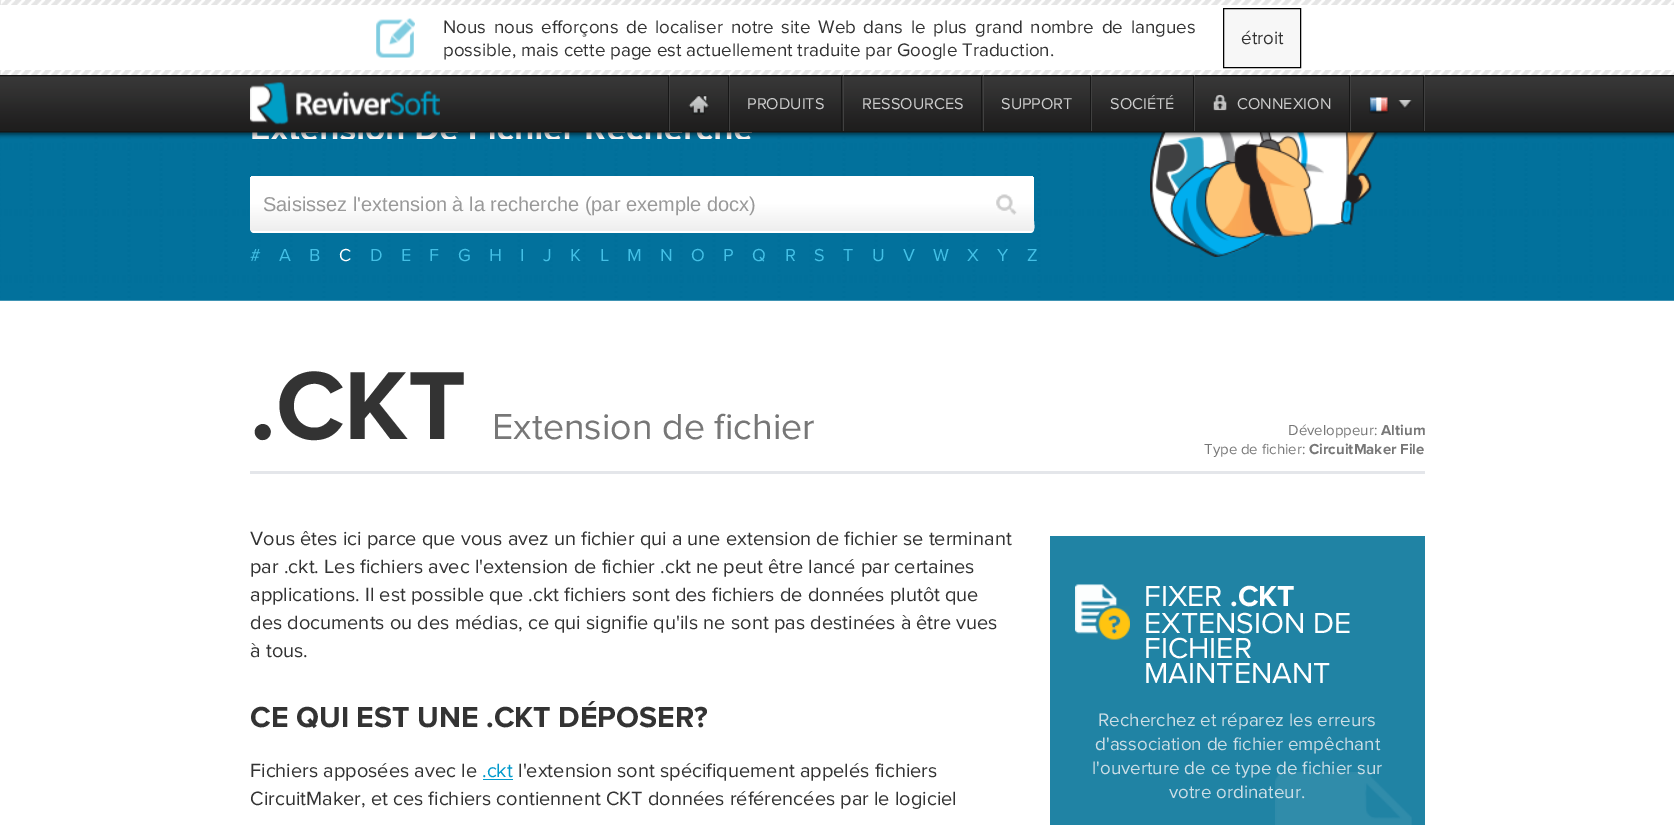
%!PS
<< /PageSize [1674 825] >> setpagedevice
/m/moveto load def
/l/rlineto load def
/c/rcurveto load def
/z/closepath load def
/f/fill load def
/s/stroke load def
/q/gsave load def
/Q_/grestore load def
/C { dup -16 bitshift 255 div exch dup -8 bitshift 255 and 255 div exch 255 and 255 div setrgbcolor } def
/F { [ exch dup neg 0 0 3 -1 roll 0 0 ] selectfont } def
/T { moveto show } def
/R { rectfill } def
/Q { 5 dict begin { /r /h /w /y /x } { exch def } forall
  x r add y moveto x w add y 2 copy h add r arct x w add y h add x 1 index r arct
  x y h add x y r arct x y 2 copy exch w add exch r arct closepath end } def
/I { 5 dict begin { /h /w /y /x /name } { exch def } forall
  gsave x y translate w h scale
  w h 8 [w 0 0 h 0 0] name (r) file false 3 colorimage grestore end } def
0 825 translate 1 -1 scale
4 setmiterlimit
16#FFFFFF C
0 0 1674 825 R
(9.rgb) 0 132 1674 169 I
(11.rgb) 1150 132 228 125 I
(1.rgb) 0 75 1674 64 I
(2.rgb) 1 0 1673 5 I
16#E7E7E7 C
0 0 1 5 R
(3.rgb) 376 18 39 40 I
/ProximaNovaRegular-Regular 18.75 F
16#333333 C
443 33 m 2.75 0 32 (Nous nous efforçons de localiser notre site Web dans le plus grand nombre de langues) widthshow
(possible, mais cette page est actuellement traduite par Google Traduction.) 443 56 T
16#F7F7F7 C
1223.5 8.5 m 77 0 l 0 59 l -77 0 l z q f Q_
16#000000 C
s
16#333333 C
(étroit) 1241 44 T
(2.rgb) 1 70 1673 5 I
16#E7E7E7 C
0 70 1 5 R
(4.rgb) 250 82 190 43 I
16#404040 C
1424 75 1 56 R
16#171717 C
668 75 1 56 R
728 75 1 56 R
16#404040 C
669 75 1 56 R
(5.rgb) 688 95 21 20 I
16#171717 C
841 75 1 56 R
16#404040 C
729 75 1 56 R
/ProximaNovaRegular-Regular 16.25 F
16#CCCCCC C
(PRODUITS) 747 109 T
16#171717 C
981 75 1 56 R
16#404040 C
843 75 1 56 R
16#CCCCCC C
(RESSOURCES) 862 109 T
16#171717 C
1090 75 1 56 R
16#404040 C
983 75 1 56 R
16#CCCCCC C
(SUPPORT) 1001 109 T
16#171717 C
1193 75 1 56 R
16#404040 C
1091 75 1 56 R
16#CCCCCC C
(SOCIÉTÉ) 1110 109 T
16#171717 C
1349 75 1 56 R
16#404040 C
1194 75 1 56 R
(6.rgb) 1213 94 14 17 I
16#CCCCCC C
(CONNEXION) 1237 109 T
16#171717 C
1423 75 1 56 R
16#404040 C
1350 75 1 56 R
(7.rgb) 1369 97 20 17 I
(8.rgb) 1398 100 14 9 I
16#FFFFFF C
250 228 m 0 2 1 5 4 5 c 776 0 l 6 0 4 -9 4 -12 c 0 -40 l 0 47 l 0 2 -2 3 -4 3 c -776 0 l -2 0 -4 -1 -4 -3 c z f
q 250 176 784 55 4 Q clip newpath
<< /ShadingType 2 /ColorSpace /DeviceRGB /Coords [642 231 642 176] /Extend [true true] /Function << /FunctionType 3 /Domain [0 1] /Functions [<< /FunctionType 2 /Domain [0 1] /C0 [.933 .933 .933] /C1 [1 1 1] /N 1 >> << /FunctionType 2 /Domain [0 1] /C0 [1 1 1] /C1 [1 1 1] /N 1 >>] /Bounds [.5] /Encode [0 1 0 1] >> >> shfill Q_
/LiberationSans-Regular 20 F
16#999999 C
(Saisissez l'extension à la recherche \(par exemple docx\)) 263 211 T
(10.rgb) 996 194 21 21 I
/ProximaNovaRegular-Regular 18 F
16#44C0E6 C
(#) 250 261 T
(A) 279 261 T
(B) 309 261 T
16#FFFFFF C
(C) 339 261 T
16#44C0E6 C
(D) 370 261 T
(E) 401 261 T
(F) 429 261 T
(G) 458 261 T
(H) 489 261 T
(I) 520 261 T
(J) 543 261 T
(K) 570 261 T
(L) 600 261 T
(M) 627 261 T
(N) 660 261 T
(O) 691 261 T
(P) 723 261 T
(Q) 752 261 T
(R) 785 261 T
(S) 814 261 T
(T) 843 261 T
(U) 872 261 T
(V) 903 261 T
(W) 933 261 T
(X) 967 261 T
(Y) 997 261 T
(Z) 1027 261 T
16#E4E6EA C
250 471 1175 3 R
/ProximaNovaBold-Regular 100 F
16#333333 C
(.CKT) 250 439 T
/ProximaNovaRegular-Regular 37.5 F
16#777777 C
(Extension de fichier) 492 439 T
/ProximaNovaRegular-Regular 15 F
(Développeur:) 1288 435 T
/ProximaNovaBold-Regular 15 F
(Altium) 1381 435 T
/ProximaNovaRegular-Regular 15 F
(Type de fichier:) 1204 454 T
/ProximaNovaBold-Regular 15 F
(CircuitMaker File) 1309 454 T
/ProximaNovaRegular-Regular 20 F
16#333333 C
(Vous êtes ici parce que vous avez un fichier qui a une extension de fichier se terminant) 250 545 T
(par .ckt. Les fichiers avec l'extension de fichier .ckt ne peut être lancé par certaines) 250 573 T
(applications. Il est possible que .ckt fichiers sont des fichiers de données plutôt que) 250 601 T
(des documents ou des médias, ce qui signifie qu'ils ne sont pas destinées à être vues) 250 629 T
(à tous.) 250 657 T
/ProximaNovaBold-Regular 30 F
(CE QUI EST UNE .CKT DÉPOSER?) 250 727 T
/ProximaNovaRegular-Regular 20 F
(Fichiers apposées avec le) 250 777 T
16#0099CC C
(.ckt) 482 777 T
483 779 30 1 R
16#333333 C
(l'extension sont spécifiquement appelés fichiers) 518 777 T
(CircuitMaker, et ces fichiers contiennent CKT données référencées par le logiciel) 250 805 T
16#2083A4 C
1050 536 375 289 R
(12.rgb) 1275 772 137 53 I
(13.rgb) 1075 584 55 56 I
/ProximaNovaRegular-Regular 30 F
16#FFFFFF C
(FIXER) 1144 606 T
/ProximaNovaBold-Regular 30 F
(.CKT) 1230 606 T
/ProximaNovaRegular-Regular 30 F
(EXTENSION DE) 1144 633 T
(FICHIER) 1144 658 T
(MAINTENANT) 1144 683 T
/ProximaNovaRegular-Regular 18.75 F
16#CCDEE6 C
(Recherchez et réparez les erreurs) 1098 726 T
(d'association de fichier empêchant) 1095 750 T
(l'ouverture de ce type de fichier sur) 1092 774 T
(votre ordinateur.) 1169 798 T
showpage
